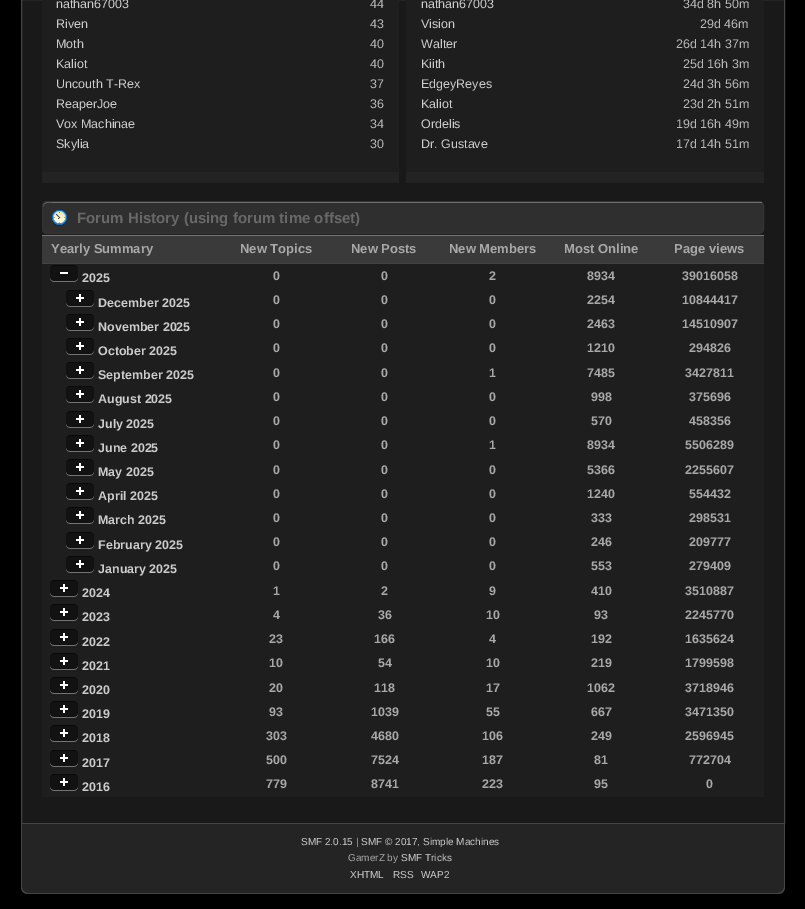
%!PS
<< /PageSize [805 909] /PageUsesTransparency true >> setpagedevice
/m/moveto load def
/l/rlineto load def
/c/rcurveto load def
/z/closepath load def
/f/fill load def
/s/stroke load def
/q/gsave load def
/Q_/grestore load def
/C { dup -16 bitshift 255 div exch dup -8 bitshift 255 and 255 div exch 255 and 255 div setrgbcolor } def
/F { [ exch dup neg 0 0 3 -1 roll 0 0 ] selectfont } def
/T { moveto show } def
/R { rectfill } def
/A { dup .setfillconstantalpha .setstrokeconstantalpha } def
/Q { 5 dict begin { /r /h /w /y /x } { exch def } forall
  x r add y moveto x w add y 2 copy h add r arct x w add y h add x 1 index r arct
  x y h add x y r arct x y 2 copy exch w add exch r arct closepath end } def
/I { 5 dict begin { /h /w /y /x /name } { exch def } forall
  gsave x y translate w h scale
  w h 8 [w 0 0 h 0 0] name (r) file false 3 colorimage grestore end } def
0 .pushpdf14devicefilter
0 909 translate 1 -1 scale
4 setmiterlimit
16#000000 C
0 0 805 909 R
16#191919 C
21.5 -.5 m 763 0 l 0 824 l -763 0 l z q f Q_
16#444444 C
s
16#1E1E1E C
42 0 357 172 R
/LiberationSans-Regular 12.5 F
16#CCCCCC C
(nathan67003) 56 8 T
16#B8B8B8 C
(44) 370 8 T
16#CCCCCC C
(Riven) 56 28 T
16#B8B8B8 C
(43) 370 28 T
16#CCCCCC C
(Moth) 56 48 T
16#B8B8B8 C
(40) 370 48 T
16#CCCCCC C
(Kaliot) 56 68 T
16#B8B8B8 C
(40) 370 68 T
16#CCCCCC C
(Uncouth T-Rex) 56 88 T
16#B8B8B8 C
(37) 370 88 T
16#CCCCCC C
(ReaperJoe) 56 108 T
16#B8B8B8 C
(36) 370 108 T
16#CCCCCC C
(Vox Machinae) 56 128 T
16#B8B8B8 C
(34) 370 128 T
16#CCCCCC C
(Skylia) 56 148 T
16#B8B8B8 C
(30) 370 148 T
16#232323 C
42 172 357 11 R
16#1E1E1E C
406 0 358 172 R
16#CCCCCC C
(nathan67003) 421 8 T
16#B8B8B8 C
(34d 8h 50m) 683 8 T
16#CCCCCC C
(Vision) 421 28 T
16#B8B8B8 C
(29d 46m) 700 28 T
16#CCCCCC C
(Walter) 421 48 T
16#B8B8B8 C
(26d 14h 37m) 676 48 T
16#CCCCCC C
(Kiith) 421 68 T
16#B8B8B8 C
(25d 16h 3m) 683 68 T
16#CCCCCC C
(EdgeyReyes) 421 88 T
16#B8B8B8 C
(24d 3h 56m) 683 88 T
16#CCCCCC C
(Kaliot) 421 108 T
16#B8B8B8 C
(23d 2h 51m) 683 108 T
16#CCCCCC C
(Ordelis) 421 128 T
16#B8B8B8 C
(19d 16h 49m) 676 128 T
16#CCCCCC C
(Dr. Gustave) 421 148 T
16#B8B8B8 C
(17d 14h 51m) 676 148 T
16#232323 C
406 172 358 11 R
16#2F2F2F C
42 201 722 33 5 Q f
16#6D6D6D C
47 203 m 712 0 l 2 0 4 2 4 4 c 0 -3 -1 -5 -4 -5 c -712 0 l -3 1 l -1 1 l 0 3 l 0 -2 2 -4 4 -4 c z f
16#333333 C
42.5 201.5 721 32 4.5 Q s
16#2F2F2F C
52 202 m 707 0 l 2 0 4 2 4 4 c 0 23 l 0 2 -2 4 -4 4 c -707 0 l z f
q
43 202 720 31 4 Q clip newpath
0.3 A
16#FFFFFF C
52 202 711 1 R
Q_
(1.rgb) 52 210 15 16 I
/LiberationSans-Bold 15 F
16#686868 C
(Forum History \(using forum time offset\)) 77 223 T
16#444444 C
42 263 722 1 R
16#3A3A3A C
42 236 722 27 R
16#757575 C
42 235 722 1 R
/LiberationSans-Bold 13 F
16#A8A8A8 C
(Yearly Summary) 51 253 T
(New Topics) 240 253 T
(New Posts) 351 253 T
(New Members) 449 253 T
(Most Online) 564 253 T
(Page views) 674 253 T
16#1E1E1E C
42 264 722 533 R
(2.rgb) 50 265 28 17 I
/LiberationSans-Bold 12.5 F
16#CCCCCC C
(2025) 82 282 T
16#A8A8A8 C
(0) 273 280 T
(0) 381 280 T
(2) 489 280 T
(8934) 587 280 T
(39016058) 682 280 T
(3.rgb) 66 290 28 17 I
16#CCCCCC C
(December 2025) 98 307 T
16#A8A8A8 C
(0) 273 304 T
(0) 381 304 T
(0) 489 304 T
(2254) 587 304 T
(10844417) 682 304 T
(3.rgb) 66 314 28 17 I
16#CCCCCC C
(November 2025) 98 331 T
16#A8A8A8 C
(0) 273 328 T
(0) 381 328 T
(0) 489 328 T
(2463) 587 328 T
(14510907) 682 328 T
(3.rgb) 66 338 28 17 I
16#CCCCCC C
(October 2025) 98 355 T
16#A8A8A8 C
(0) 273 352 T
(0) 381 352 T
(0) 489 352 T
(1210) 587 352 T
(294826) 689 352 T
(3.rgb) 66 362 28 17 I
16#CCCCCC C
(September 2025) 98 379 T
16#A8A8A8 C
(0) 273 377 T
(0) 381 377 T
(1) 489 377 T
(7485) 587 377 T
(3427811) 685 377 T
(3.rgb) 66 386 28 17 I
16#CCCCCC C
(August 2025) 98 403 T
16#A8A8A8 C
(0) 273 401 T
(0) 381 401 T
(0) 489 401 T
(998) 591 401 T
(375696) 689 401 T
(3.rgb) 66 411 28 17 I
16#CCCCCC C
(July 2025) 98 428 T
16#A8A8A8 C
(0) 273 425 T
(0) 381 425 T
(0) 489 425 T
(570) 591 425 T
(458356) 689 425 T
(3.rgb) 66 435 28 17 I
16#CCCCCC C
(June 2025) 98 452 T
16#A8A8A8 C
(0) 273 449 T
(0) 381 449 T
(1) 489 449 T
(8934) 587 449 T
(5506289) 685 449 T
(3.rgb) 66 459 28 17 I
16#CCCCCC C
(May 2025) 98 476 T
16#A8A8A8 C
(0) 273 474 T
(0) 381 474 T
(0) 489 474 T
(5366) 587 474 T
(2255607) 685 474 T
(3.rgb) 66 483 28 17 I
16#CCCCCC C
(April 2025) 98 500 T
16#A8A8A8 C
(0) 273 498 T
(0) 381 498 T
(0) 489 498 T
(1240) 587 498 T
(554432) 689 498 T
(3.rgb) 66 507 28 17 I
16#CCCCCC C
(March 2025) 98 524 T
16#A8A8A8 C
(0) 273 522 T
(0) 381 522 T
(0) 489 522 T
(333) 591 522 T
(298531) 689 522 T
(3.rgb) 66 532 28 17 I
16#CCCCCC C
(February 2025) 98 549 T
16#A8A8A8 C
(0) 273 546 T
(0) 381 546 T
(0) 489 546 T
(246) 591 546 T
(209777) 689 546 T
(3.rgb) 66 556 28 17 I
16#CCCCCC C
(January 2025) 98 573 T
16#A8A8A8 C
(0) 273 570 T
(0) 381 570 T
(0) 489 570 T
(553) 591 570 T
(279409) 689 570 T
(3.rgb) 50 580 28 17 I
16#CCCCCC C
(2024) 82 597 T
16#A8A8A8 C
(1) 273 595 T
(2) 381 595 T
(9) 489 595 T
(410) 591 595 T
(3510887) 685 595 T
(3.rgb) 50 604 28 17 I
16#CCCCCC C
(2023) 82 621 T
16#A8A8A8 C
(4) 273 619 T
(36) 378 619 T
(10) 486 619 T
(93) 594 619 T
(2245770) 685 619 T
(3.rgb) 50 629 28 17 I
16#CCCCCC C
(2022) 82 646 T
16#A8A8A8 C
(23) 269 643 T
(166) 374 643 T
(4) 489 643 T
(192) 591 643 T
(1635624) 685 643 T
(3.rgb) 50 653 28 17 I
16#CCCCCC C
(2021) 82 670 T
16#A8A8A8 C
(10) 269 667 T
(54) 378 667 T
(10) 486 667 T
(219) 591 667 T
(1799598) 685 667 T
(3.rgb) 50 677 28 17 I
16#CCCCCC C
(2020) 82 694 T
16#A8A8A8 C
(20) 269 692 T
(118) 374 692 T
(17) 486 692 T
(1062) 587 692 T
(3718946) 685 692 T
(3.rgb) 50 701 28 17 I
16#CCCCCC C
(2019) 82 718 T
16#A8A8A8 C
(93) 269 716 T
(1039) 371 716 T
(55) 486 716 T
(667) 591 716 T
(3471350) 685 716 T
(3.rgb) 50 725 28 17 I
16#CCCCCC C
(2018) 82 742 T
16#A8A8A8 C
(303) 266 740 T
(4680) 371 740 T
(106) 482 740 T
(249) 591 740 T
(2596945) 685 740 T
(3.rgb) 50 750 28 17 I
16#CCCCCC C
(2017) 82 767 T
16#A8A8A8 C
(500) 266 764 T
(7524) 371 764 T
(187) 482 764 T
(81) 594 764 T
(772704) 689 764 T
(3.rgb) 50 774 28 17 I
16#CCCCCC C
(2016) 82 791 T
16#A8A8A8 C
(779) 266 788 T
(8741) 371 788 T
(223) 482 788 T
(95) 594 788 T
(0) 706 788 T
16#242424 C
21 824 m 764 0 l 0 63 l 0 4 -3 7 -7 7 c -750 0 l -4 0 -7 -3 -7 -7 c z f
16#444444 C
21 824 m 764 0 l 0 63 l 0 4 -3 7 -7 7 c -750 0 l -4 0 -7 -3 -7 -7 c z 22 824 m 762 0 l 0 63 l 0 3 -3 6 -6 6 c -750 0 l -3 0 -6 -3 -6 -6 c z eofill
/LiberationSans-Regular 10 F
16#CCCCCC C
(SMF 2.0.15) 301 845 T
16#A8A8A8 C
(|) 356 845 T
16#CCCCCC C
(SMF © 2017) 361 845 T
16#A8A8A8 C
(,) 417 845 T
16#CCCCCC C
(Simple Machines) 423 845 T
16#A8A8A8 C
(GamerZ by) 348 861 T
16#CCCCCC C
(SMF Tricks) 401 861 T
(XHTML) 350 878 T
(RSS) 393 878 T
(WAP2) 421 878 T
.poppdf14devicefilter showpage
